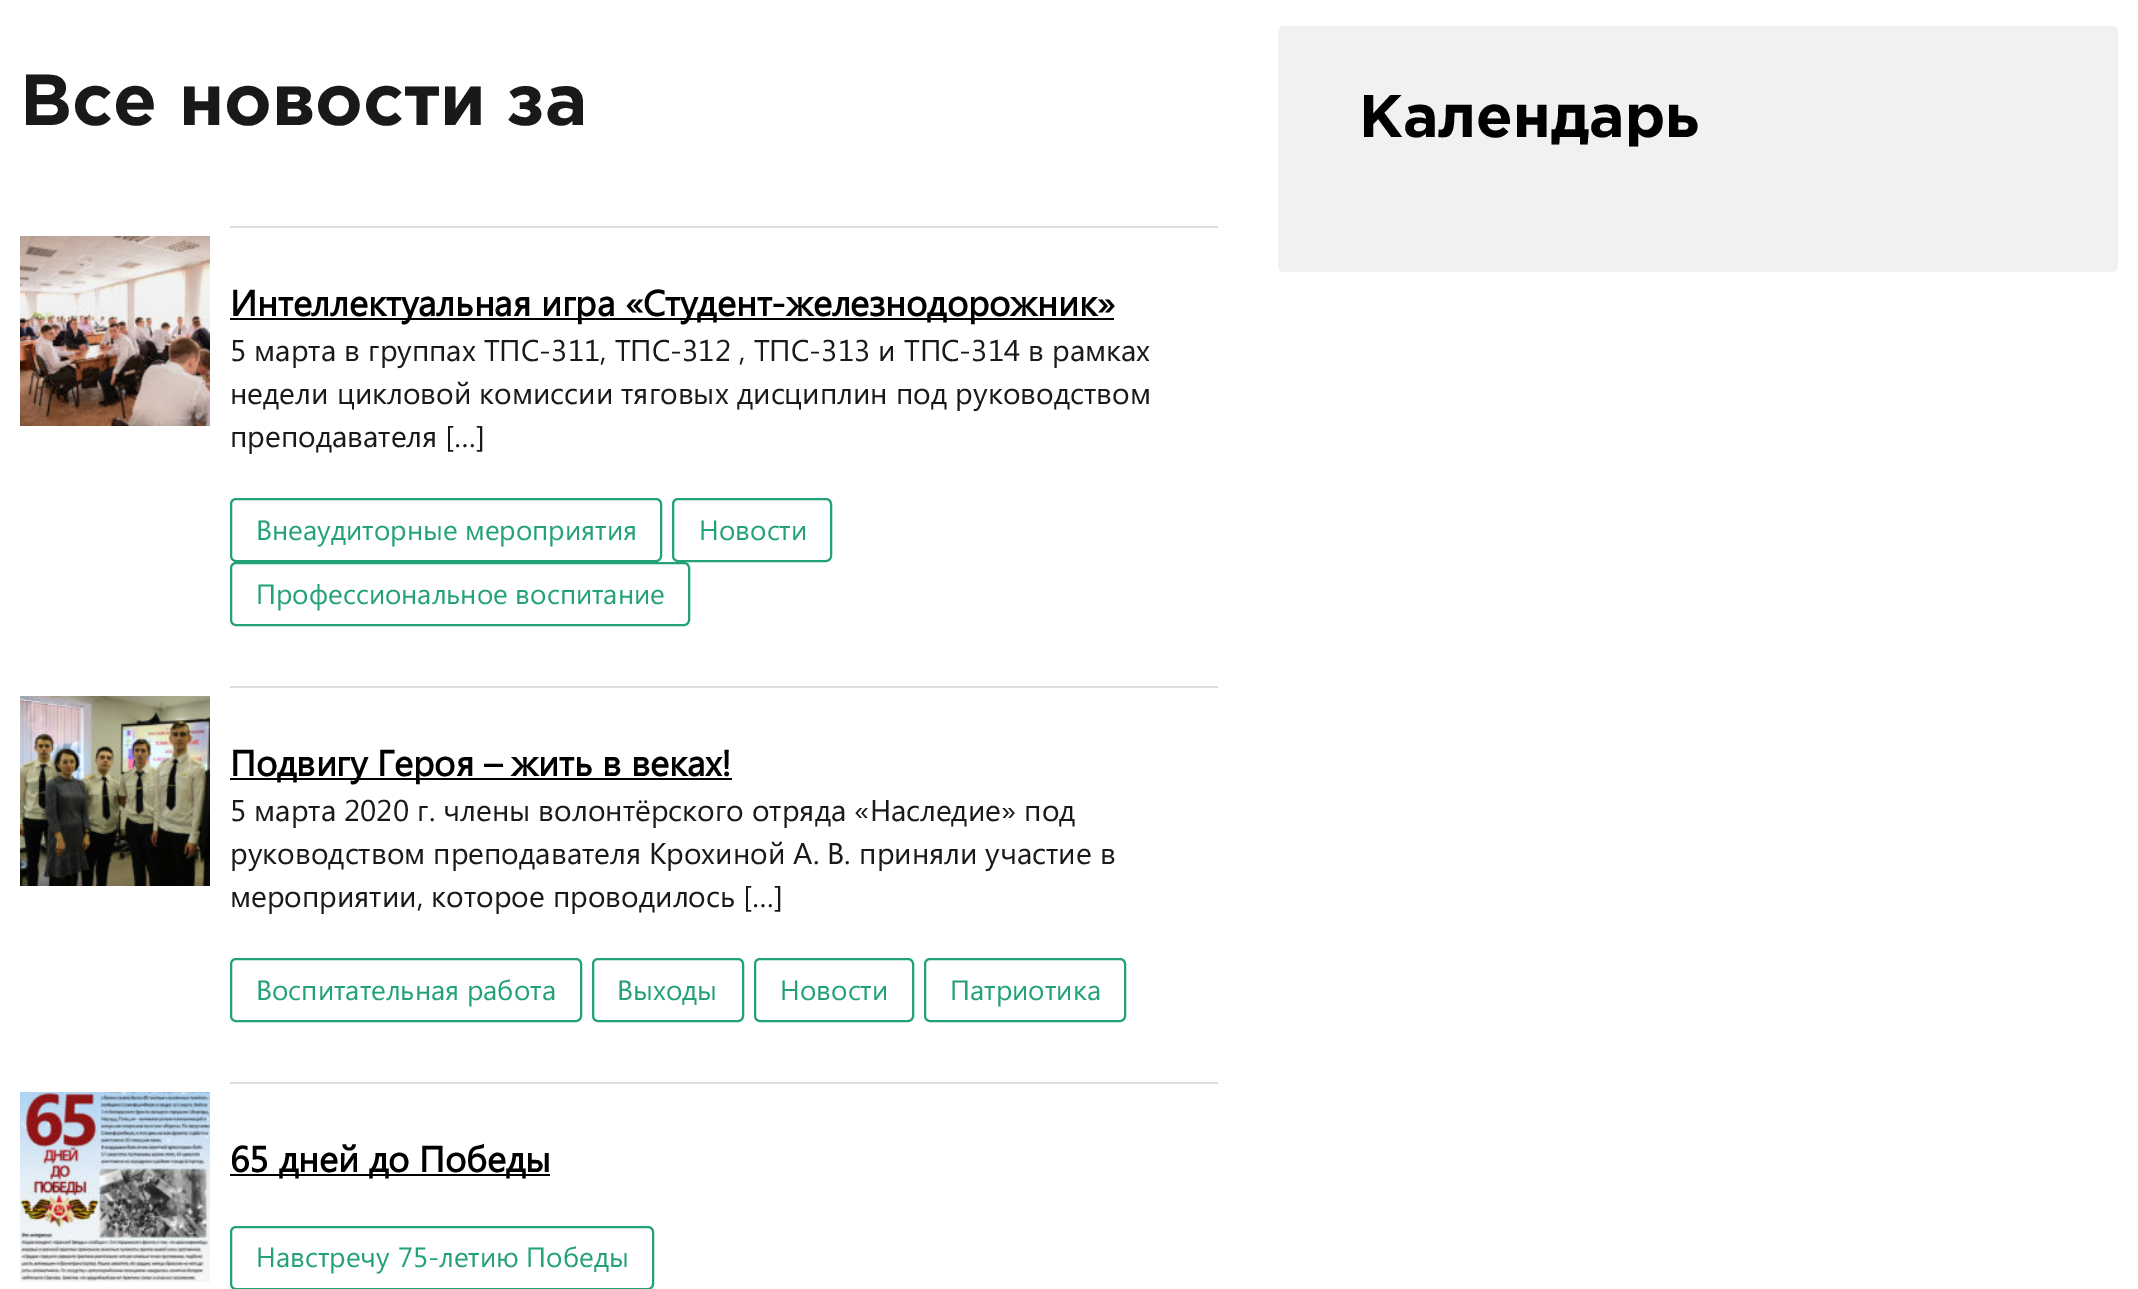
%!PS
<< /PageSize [2138 1289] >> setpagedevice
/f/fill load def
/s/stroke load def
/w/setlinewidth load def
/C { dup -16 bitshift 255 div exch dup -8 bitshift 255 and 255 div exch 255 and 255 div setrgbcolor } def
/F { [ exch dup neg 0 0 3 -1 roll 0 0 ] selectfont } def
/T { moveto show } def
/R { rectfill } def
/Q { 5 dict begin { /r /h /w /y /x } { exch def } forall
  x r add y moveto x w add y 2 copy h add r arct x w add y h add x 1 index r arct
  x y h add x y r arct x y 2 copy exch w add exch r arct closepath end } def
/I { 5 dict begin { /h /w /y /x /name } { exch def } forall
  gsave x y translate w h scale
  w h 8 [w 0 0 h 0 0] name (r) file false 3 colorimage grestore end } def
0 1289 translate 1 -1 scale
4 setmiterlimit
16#FFFFFF C
0 0 2138 1289 R
/Gotham-Bold 72 F
16#191919 C
(Все новости за) 20 125 T
(1.rgb) 20 236 190 190 I
16#DDDDDD C
230 226 988 2 R
16#000000 C
230 318 884 2 R
/SegoeUI-Bold 36 F
(Интеллектуальная игра «Студент-железнодорожник») 230 316 T
/SegoeUI-Regular 30 F
16#191919 C
(5 марта в группах ТПС-311, ТПС-312 , ТПС-313 и ТПС-314 в рамках) 230 361 T
(недели цикловой комиссии тяговых дисциплин под руководством) 230 404 T
(преподавателя […]) 230 447 T
16#24A277 C
2 w
231 499 430 62 5 Q s
/SegoeUI-Regular 28 F
(Внеаудиторные мероприятия) 256 540 T
673 499 158 62 5 Q s
(Новости) 699 540 T
231 563 458 62 5 Q s
(Профессиональное воспитание) 256 604 T
(2.rgb) 20 696 190 190 I
16#DDDDDD C
230 686 988 2 R
16#000000 C
230 778 502 2 R
/SegoeUI-Bold 36 F
(Подвигу Героя – жить в веках!) 230 776 T
/SegoeUI-Regular 30 F
16#191919 C
(5 марта 2020 г. члены волонтёрского отряда «Наследие» под) 230 821 T
(руководством преподавателя Крохиной А. В. приняли участие в) 230 864 T
(мероприятии, которое проводилось […]) 230 907 T
16#24A277 C
231 959 350 62 5 Q s
/SegoeUI-Regular 28 F
(Воспитательная работа) 256 1000 T
593 959 150 62 5 Q s
(Выходы) 617 1000 T
755 959 158 62 5 Q s
(Новости) 780 1000 T
925 959 200 62 5 Q s
(Патриотика) 950 1000 T
(3.rgb) 20 1092 190 190 I
16#DDDDDD C
230 1082 988 2 R
16#000000 C
230 1174 320 2 R
/SegoeUI-Bold 36 F
(65 дней до Победы) 230 1172 T
16#24A277 C
231 1227 422 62 5 Q s
/SegoeUI-Regular 28 F
(Навстречу 75-летию Победы) 256 1267 T
16#F1F1F1 C
1278 26 840 246 6 Q f
/Gotham-Bold 60 F
16#000000 C
(Календарь) 1359 137 T
showpage
